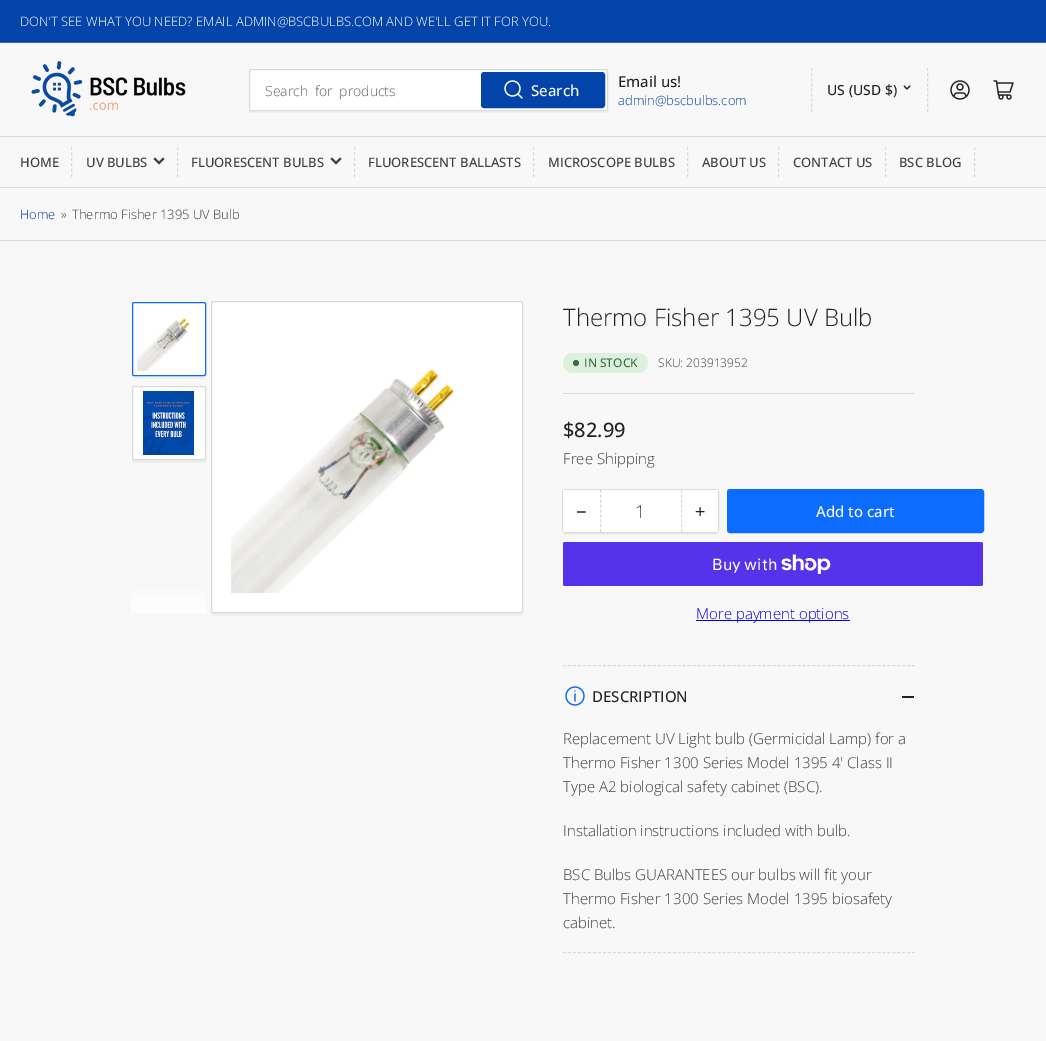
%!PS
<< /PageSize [1046 1041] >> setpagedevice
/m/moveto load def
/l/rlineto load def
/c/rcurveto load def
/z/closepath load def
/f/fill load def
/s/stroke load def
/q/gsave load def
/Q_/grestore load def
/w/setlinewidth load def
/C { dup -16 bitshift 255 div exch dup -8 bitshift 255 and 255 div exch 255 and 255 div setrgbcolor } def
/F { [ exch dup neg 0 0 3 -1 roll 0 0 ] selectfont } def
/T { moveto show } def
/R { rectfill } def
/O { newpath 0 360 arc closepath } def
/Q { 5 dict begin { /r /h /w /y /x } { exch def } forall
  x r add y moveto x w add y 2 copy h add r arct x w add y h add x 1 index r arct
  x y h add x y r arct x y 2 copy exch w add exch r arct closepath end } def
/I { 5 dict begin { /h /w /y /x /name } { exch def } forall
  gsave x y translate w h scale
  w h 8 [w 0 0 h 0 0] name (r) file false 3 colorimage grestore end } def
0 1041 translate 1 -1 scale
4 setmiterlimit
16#F8F8F8 C
0 0 1046 1041 R
16#0244A9 C
0 0 1046 42 R
16#3569BA C
0 42 1046 1 R
/OpenSans-Light 13 F
16#FFFFFF C
(DON'T SEE WHAT YOU NEED? EMAIL ADMIN@BSCBULBS.COM AND WE'LL GET IT FOR YOU.) 20 26 T
(1.rgb) 31 61 155 56 I
16#EFEFEF C
249 109 m 0 2 l 0 1 1 2 2 2 c 355 0 l 1 0 2 -1 2 -2 c 0 -2 l 0 1 -1 2 -2 2 c -355 0 l -1 0 -2 -1 -2 -2 c z f
16#FFFFFF C
249.5 69.5 358 41 1.5 Q q f Q_
16#DADADA C
s
/OpenSans-Light 14 F
16#656565 C
265 96 m 3 0 32 (Search for products) widthshow
16#0244A9 C
481.5 72.5 123 35 2.5 Q s
482 73 122 34 2 Q f
(2.rgb) 504 80 19 19 I
/OpenSans-Medium 15 F
16#FFFFFF C
(Search) 531 96 T
16#232323 C
(Email us!) 618 87 T
/OpenSans-Light 13 F
16#0244A9 C
(admin@bscbulbs.com) 618 105 T
16#DADADA C
[3 2.12] 0 setdash
927.5 68 m 0 44 l s
811.5 68 m 0 44 l s
/OpenSans-Medium 14 F
16#232323 C
(US \(USD $\)) 827 95 T
904.5 85.5 m 3 3 l 0 .5 l -.5 1.5 -4.5 -3 -3.5 -3.5 c z f
906.5 88.5 m 3 -3 l .5 0 l 1.5 .5 -3 4.5 -3.5 3.5 c z f
(3.rgb) 950 80 20 20 I
(4.rgb) 993 80 21 20 I
16#DADADA C
0 136 1046 1 R
0 187 1046 1 R
/OpenSans-Medium 13 F
16#3E3E3E C
(HOME) 20 167 T
16#DADADA C
[3 2.4] 0 setdash
71.5 147 m 0 30 l s
16#3E3E3E C
(UV BULBS) 86 167 T
2 w
2 setlinecap
[] 0 setdash
163 159 m -4 4 l -4 -4 l s
16#DADADA C
1 w
0 setlinecap
[3 2.4] 0 setdash
177.5 147 m 0 30 l s
16#3E3E3E C
(FLUORESCENT BULBS) 191 167 T
2 w
2 setlinecap
[] 0 setdash
340 159 m -4 4 l -4 -4 l s
16#DADADA C
1 w
0 setlinecap
[3 2.4] 0 setdash
354.5 147 m 0 30 l s
16#3E3E3E C
(FLUORESCENT BALLASTS) 368 167 T
16#DADADA C
533.5 147 m 0 30 l s
16#3E3E3E C
(MICROSCOPE BULBS) 548 167 T
16#DADADA C
687.5 147 m 0 30 l s
16#3E3E3E C
(ABOUT US) 702 167 T
16#DADADA C
778.5 147 m 0 30 l s
16#3E3E3E C
(CONTACT US) 793 167 T
16#DADADA C
885.5 147 m 0 30 l s
16#3E3E3E C
(BSC BLOG) 899 167 T
16#DADADA C
974.5 147 m 0 30 l s
0 240 1046 1 R
/OpenSans-Light 13 F
16#0244A9 C
(Home) 20 219 T
16#3E3E3E C
(») 61 219 T
(Thermo Fisher 1395 UV Bulb) 72 219 T
16#EFEFEF C
132 374 m 0 3 l 0 1 1 2 2 2 c 70 0 l 1 0 2 -1 2 -2 c 0 -3 l -1 1 l -1 1 l -70 0 l -1 0 -2 -1 -2 -2 c z f
16#FFFFFF C
132.5 302.5 73 73 1.5 Q q f Q_
16#0B6CFF C
[] 0 setdash
s
(5.rgb) 137 317 53 54 I
16#EFEFEF C
132 458 m 0 3 l 0 1 1 2 2 2 c 70 0 l 1 0 2 -1 2 -2 c 0 -3 l -1 1 l -1 1 l -70 0 l -1 0 -2 -1 -2 -2 c z f
16#FFFFFF C
132.5 386.5 73 73 1.5 Q q f Q_
16#DADADA C
s
(6.rgb) 143 391 51 64 I
q 131 590 m 75 0 l 0 23 l -75 0 l z clip newpath
<< /ShadingType 2 /ColorSpace /DeviceRGB /Coords [169 613 169 578] /Extend [true true] /Function << /FunctionType 2 /Domain [0 1] /C0 [1 1 1] /C1 [.973 .973 .973] /N 1 >> >> shfill Q_
16#EFEFEF C
211 611 m 0 2 -1 5 2 5 c 308 0 l 3 0 2 -3 2 -5 c 0 1 -1 2 -2 2 c -308 0 l -1 0 -2 -1 -2 -2 c z f
16#FFFFFF C
211.5 301.5 311 311 1.5 Q q f Q_
16#DADADA C
s
(7.rgb) 231 369 224 224 I
563 393 352 1 R
/OpenSans-Light 24 F
16#232323 C
(Thermo Fisher 1395 UV Bulb) 563 326 T
16#DDF0DF C
563 353 85 20 10 Q f
16#337239 C
576 363 3 O f
/OpenSans-Medium 12 F
(IN STOCK) 584 367 T
/OpenSans-Light 12 F
16#3E3E3E C
(SKU: 203913952) 658 367 T
/OpenSans-Medium 20 F
16#232323 C
($82.99) 563 437 T
/OpenSans-Light 15 F
16#3E3E3E C
(Free Shipping) 563 464 T
16#EFEFEF C
563 530 m 0 3 l 0 1 1 2 2 2 c 151 0 l 1 0 2 -1 2 -2 c 0 -3 l 0 1 -1 2 -2 2 c -151 0 l -1 0 -2 -1 -2 -2 c z f
16#DADADA C
562.5 489.5 156 43 2.5 Q s
16#FFFFFF C
563 490 155 42 R
/LiberationSans-Regular 18 F
16#232323 C
(−) 576 518 T
16#DADADA C
[3 1.88] 0 setdash
681.5 490 m 0 42 l s
600.5 490 m 0 42 l s
/OpenSans-Light 18 F
16#3E3E3E C
(1) 635 518 T
/OpenSans-Medium 18 F
16#232323 C
(+) 695 518 T
16#0B6CFF C
[] 0 setdash
727.5 489.5 256 43 2.5 Q s
728 490 255 42 2 Q f
/OpenSans-Medium 15 F
16#FFFFFF C
(Add to cart) 816 517 T
16#5433EB C
563 542 420 44 2 Q f
/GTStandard-Regular 16 F
16#FFFFFF C
(Buy with) 712 570 T
(8.rgb) 781 554 50 20 I
16#0000EE C
696 620 154 1 R
/OpenSans-Light 15 F
(More payment options) 696 619 T
16#DADADA C
[3 1.99] 0 setdash
563 665.5 m 352 0 l s
563 952.5 m 352 0 l s
(9.rgb) 565 686 20 20 I
/OpenSans-Medium 15 F
16#232323 C
(DESCRIPTION) 592 702 T
902 696 7 2 1 Q f
906 696 8 2 1 Q f
/OpenSans-Light 15 F
16#3E3E3E C
(Replacement UV Light bulb \(Germicidal Lamp\) for a) 563 744 T
(Thermo Fisher 1300 Series Model 1395 4' Class II) 563 768 T
(Type A2 biological safety cabinet \(BSC\).) 563 792 T
(Installation instructions included with bulb.) 563 836 T
(BSC Bulbs GUARANTEES our bulbs will fit your) 563 880 T
(Thermo Fisher 1300 Series Model 1395 biosafety) 563 904 T
(cabinet.) 563 928 T
showpage
